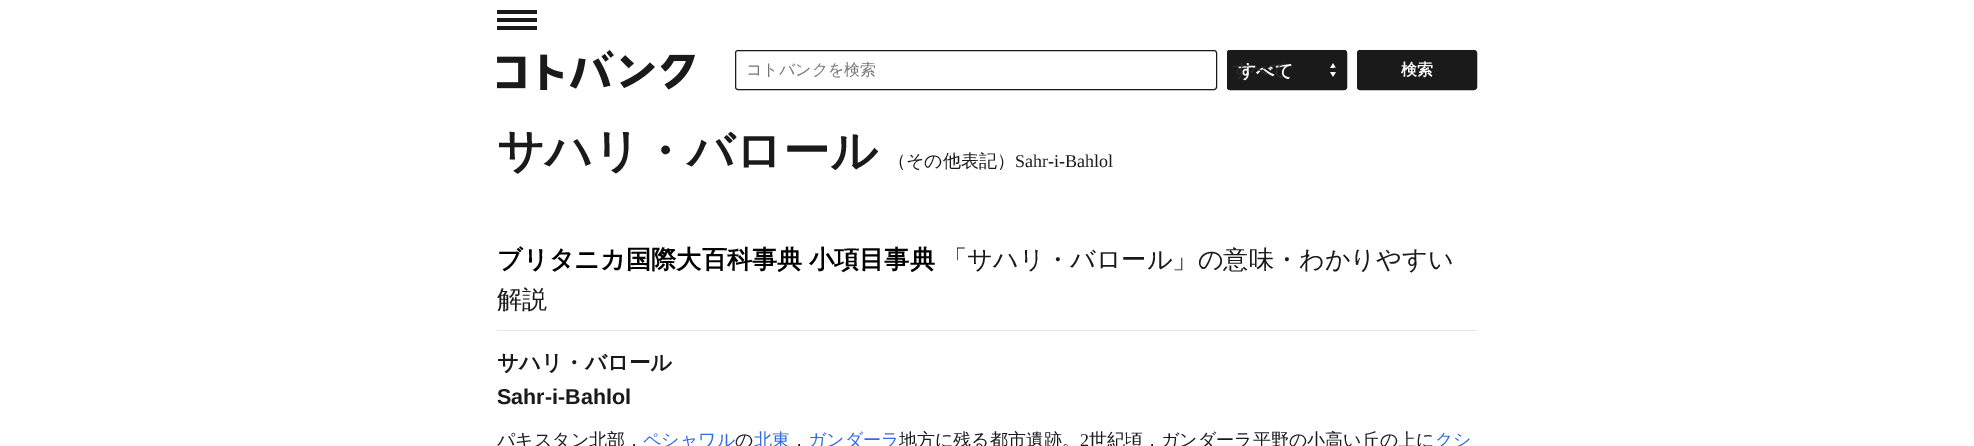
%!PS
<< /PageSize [1974 446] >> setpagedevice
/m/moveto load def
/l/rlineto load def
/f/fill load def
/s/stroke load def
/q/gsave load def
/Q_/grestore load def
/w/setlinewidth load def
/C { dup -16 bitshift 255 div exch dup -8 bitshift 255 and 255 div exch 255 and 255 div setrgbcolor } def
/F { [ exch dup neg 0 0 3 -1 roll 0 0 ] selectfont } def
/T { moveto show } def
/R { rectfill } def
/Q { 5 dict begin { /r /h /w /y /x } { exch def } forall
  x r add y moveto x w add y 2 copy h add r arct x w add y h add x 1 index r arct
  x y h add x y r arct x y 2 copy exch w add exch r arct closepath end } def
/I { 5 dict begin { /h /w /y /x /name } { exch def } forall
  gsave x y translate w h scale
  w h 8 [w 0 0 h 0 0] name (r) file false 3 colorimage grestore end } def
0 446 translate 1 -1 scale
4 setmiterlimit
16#FFFFFF C
0 0 1974 446 R
(1.rgb) 497 10 40 20 I
(2.rgb) 497 50 198 40 I
16#1A1A1A C
735.5 50.5 481 39 2.5 Q s
/WenQuanYiZenHei-Medium 16 F
16#757575 C
(コトバンクを検索) 746 75 T
16#1A1A1A C
1227 50 120 40 3 Q f
(3.rgb) 1330 63 6 14 I
1227.5 50.5 119 39 2.5 Q s
2 w
1334 68 m 4 4 l 4 -4 l s
/WenQuanYiZenHei-Bold 18 F
16#FFFFFF C
(すべて) 1238 77 T
/WenQuanYiZenHei-Medium 18 F
16#2E2E2E C
(すべて) 1232 76 T
16#1A1A1A C
1357.5 50.5 119 39 2.5 Q q f Q_
1 w
s
/WenQuanYiZenHei-Bold 16 F
16#FFFFFF C
(検索) 1401 75 T
/WenQuanYiZenHei-Bold 46.75 F
16#1A1A1A C
(サハリ・バロール) 497 167 T
/WenQuanYiZenHei-Medium 18 F
(（その他表記）) 888 167 T
/LiberationSerif-Regular 18 F
(Sahr-i-Bahlol) 1015 167 T
16#E6E6E6 C
497 330 980 1 R
/WenQuanYiZenHei-Bold 25.2 F
16#000000 C
497 268 m -1 0 32 (ブリタニカ国際大百科事典 小項目事典) widthshow
/WenQuanYiZenHei-Medium 25.2 F
16#1A1A1A C
(「サハリ・バロール」の意味・わかりやすい) 942 268 T
(解説) 497 308 T
/WenQuanYiZenHei-Bold 21.5 F
(サハリ・バロール) 497 370 T
/LiberationSans-Bold 21.5 F
(Sahr-i-Bahlol) 497 404 T
/WenQuanYiZenHei-Medium 18 F
(パキスタン北部，) 497 446 T
16#2F6BE6 C
(ペシャワル) 643 446 T
16#1A1A1A C
(の) 735 446 T
16#2F6BE6 C
(北東) 754 446 T
16#1A1A1A C
(，) 790 446 T
16#2F6BE6 C
(ガンダーラ) 808 446 T
16#1A1A1A C
(地方に残る都市遺跡。) 899 446 T
/LiberationSerif-Regular 18 F
(2) 1080 446 T
/WenQuanYiZenHei-Medium 18 F
(世紀頃，ガンダーラ平野の小高い丘の上に) 1089 446 T
16#2F6BE6 C
(クシ) 1435 446 T
showpage
